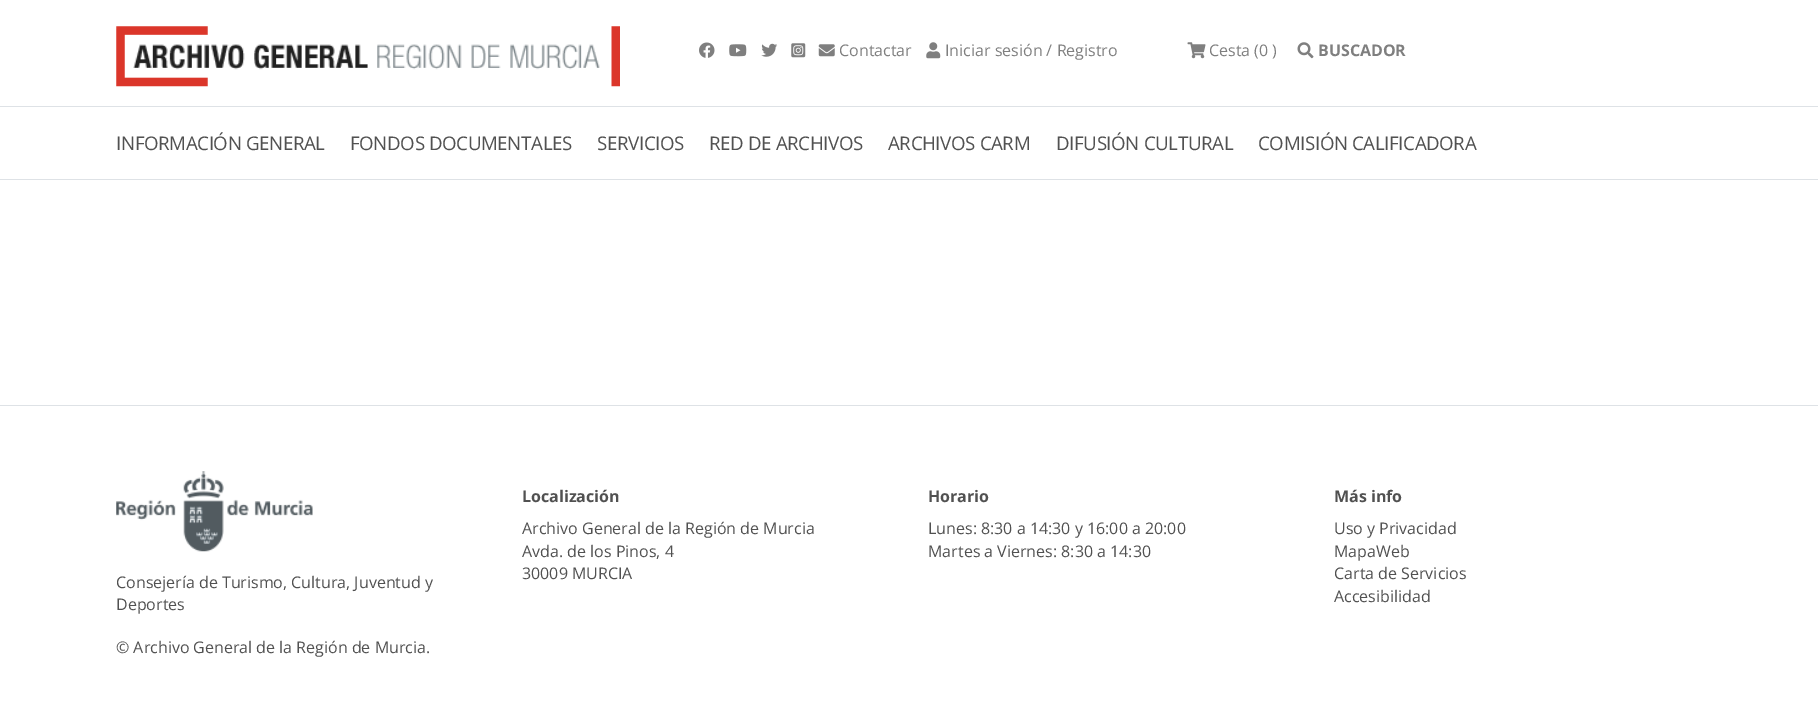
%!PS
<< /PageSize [1818 705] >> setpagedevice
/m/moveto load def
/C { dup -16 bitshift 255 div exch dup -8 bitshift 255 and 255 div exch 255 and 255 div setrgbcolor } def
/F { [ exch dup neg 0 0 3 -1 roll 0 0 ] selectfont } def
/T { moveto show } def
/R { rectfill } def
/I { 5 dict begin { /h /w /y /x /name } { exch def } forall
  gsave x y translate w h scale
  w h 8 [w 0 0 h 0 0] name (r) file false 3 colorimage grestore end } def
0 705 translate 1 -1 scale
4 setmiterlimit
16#FFFFFF C
0 0 1818 705 R
(1.rgb) 116 26 504 61 I
(2.rgb) 699 42 16 16 I
(3.rgb) 729 44 18 13 I
(4.rgb) 761 43 17 14 I
(5.rgb) 791 43 15 15 I
(6.rgb) 818 44 17 13 I
/OpenSans-Regular 16 F
16#7F7F7F C
(Contactar) 839 56 T
(7.rgb) 926 42 15 17 I
(Iniciar sesión / Registro) 945 56 T
(8.rgb) 1187 42 19 17 I
(Cesta \(0 \)) 1209 56 T
(9.rgb) 1297 42 17 17 I
/OpenSans-Bold 16 F
(BUSCADOR) 1318 56 T
16#DEE2E6 C
0 106 1818 1 R
0 179 1818 1 R
/OpenSans-Regular 18.75 F
16#515151 C
116 150 m -.4 0 (INFORMACIÓN GENERAL) ashow
350 150 m -.4 0 (FONDOS DOCUMENTALES) ashow
597 150 m -.4 0 (SERVICIOS) ashow
709 150 m -.4 0 (RED DE ARCHIVOS) ashow
888 150 m -.4 0 (ARCHIVOS CARM) ashow
1056 150 m -.4 0 (DIFUSIÓN CULTURAL) ashow
1258 150 m -.4 0 (COMISIÓN CALIFICADORA) ashow
16#DEE2E6 C
0 405 1818 1 R
/OpenSans-Bold 16 F
16#515151 C
(Localización) 522 502 T
/OpenSans-Regular 16 F
(Archivo General de la Región de Murcia) 522 534 T
(Avda. de los Pinos, 4) 522 557 T
(30009 MURCIA) 522 579 T
/OpenSans-Bold 16 F
(Horario) 928 502 T
/OpenSans-Regular 16 F
(Lunes: 8:30 a 14:30 y 16:00 a 20:00) 928 534 T
(Martes a Viernes: 8:30 a 14:30) 928 557 T
/OpenSans-Bold 16 F
(Más info) 1334 502 T
/OpenSans-Regular 16 F
(Uso y Privacidad) 1334 534 T
(MapaWeb) 1334 557 T
(Carta de Servicios) 1334 579 T
(Accesibilidad) 1334 602 T
(10.rgb) 116 471 197 81 I
(Consejería de Turismo, Cultura, Juventud y) 116 588 T
(Deportes) 116 610 T
(© Archivo General de la Región de Murcia.) 116 653 T
showpage
